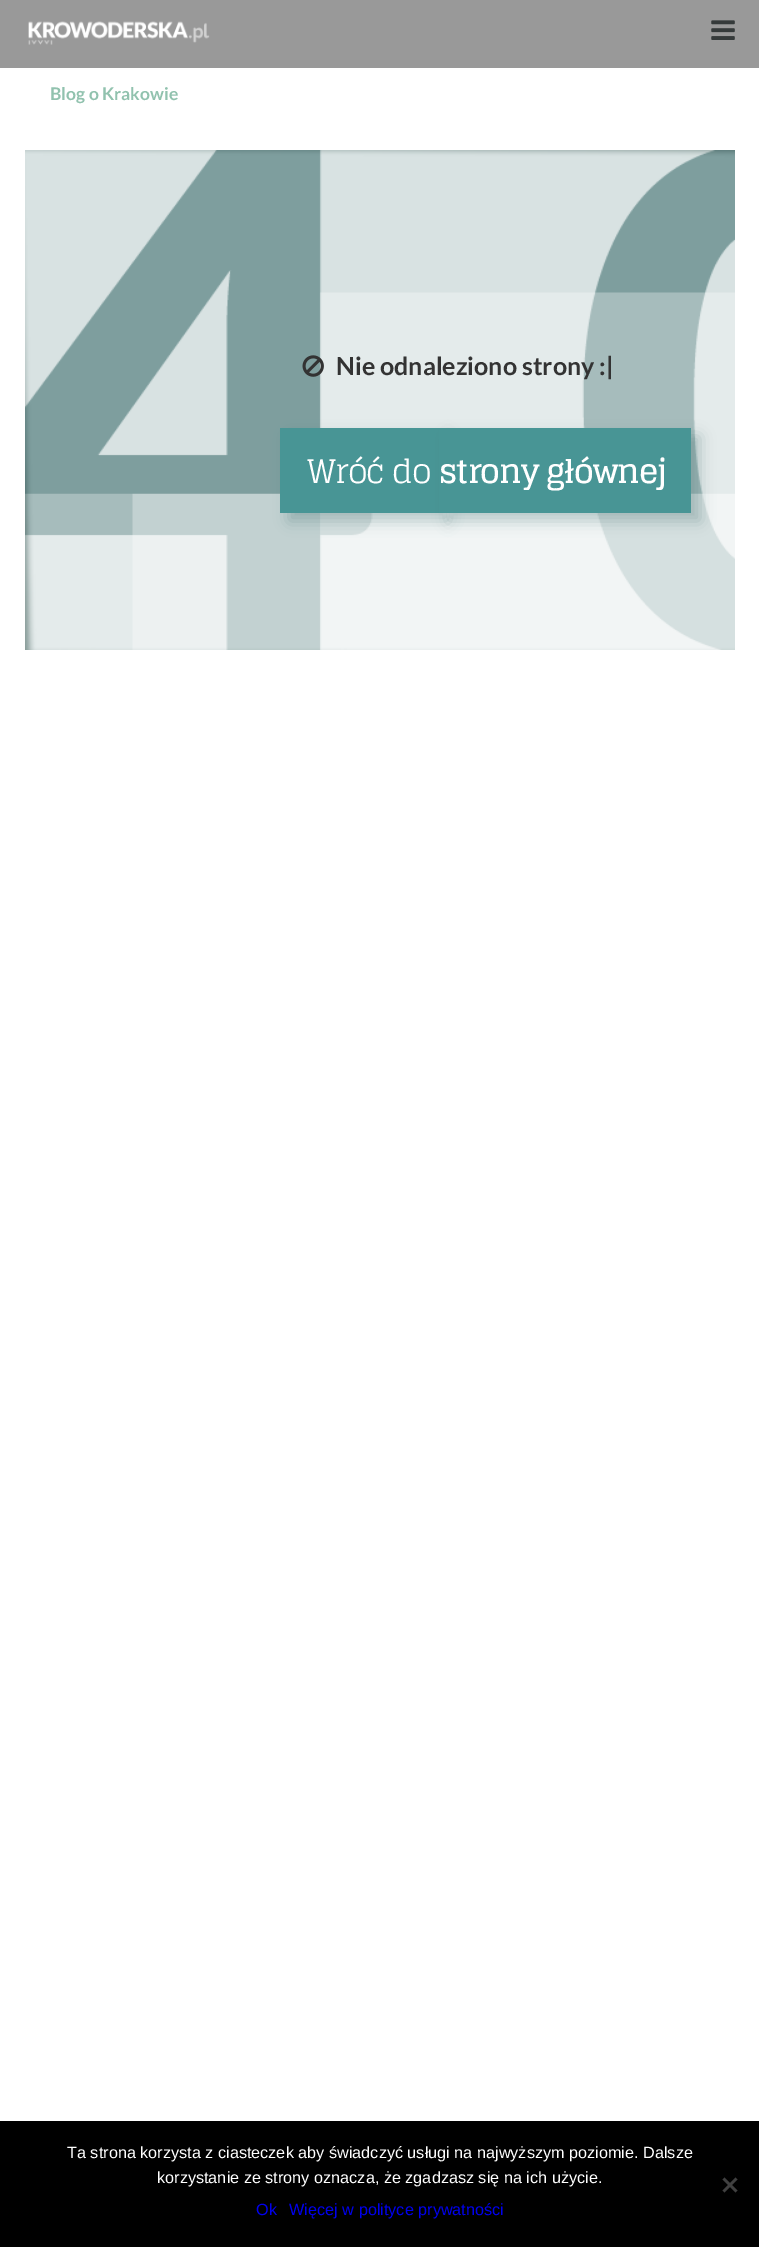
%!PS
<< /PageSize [759 2247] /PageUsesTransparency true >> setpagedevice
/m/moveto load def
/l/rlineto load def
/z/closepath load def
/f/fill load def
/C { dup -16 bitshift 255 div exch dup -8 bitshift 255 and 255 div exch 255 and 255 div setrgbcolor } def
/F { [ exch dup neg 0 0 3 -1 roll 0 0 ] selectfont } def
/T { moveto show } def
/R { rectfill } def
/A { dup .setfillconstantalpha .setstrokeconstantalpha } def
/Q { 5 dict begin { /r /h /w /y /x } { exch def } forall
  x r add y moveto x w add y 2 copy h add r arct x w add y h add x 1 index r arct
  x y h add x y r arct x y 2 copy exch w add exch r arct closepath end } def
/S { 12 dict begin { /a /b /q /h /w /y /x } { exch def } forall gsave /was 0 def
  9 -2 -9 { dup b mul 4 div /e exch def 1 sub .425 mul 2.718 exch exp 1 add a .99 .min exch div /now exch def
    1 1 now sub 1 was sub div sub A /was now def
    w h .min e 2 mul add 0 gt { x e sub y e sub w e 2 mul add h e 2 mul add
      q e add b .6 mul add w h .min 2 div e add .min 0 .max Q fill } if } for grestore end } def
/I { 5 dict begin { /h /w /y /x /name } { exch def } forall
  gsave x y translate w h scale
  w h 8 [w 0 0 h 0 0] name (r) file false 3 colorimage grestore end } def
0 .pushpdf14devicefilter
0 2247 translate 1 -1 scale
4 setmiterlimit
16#FFFFFF C
0 0 759 2247 R
16#999999 C
0 0 759 68 R
(1.rgb) 28 21 182 24 I
(2.rgb) 711 20 24 20 I
/Lato-Bold 17.5 F
16#91C2AE C
(Blog o Krakowie) 50 100 T
(3.rgb) 25 150 710 500 I
(4.rgb) 302 355 22 22 I
/Lato-Bold 25 F
16#333333 C
(Nie odnaleziono strony :|) 336 375 T
16#2A5F5F C
289 436 159 85 0 7.5 .3 S
16#489595 C
280 428 159 85 R
16#2A5F5F C
448 436 252 85 0 7.5 .3 S
/Glegoo-Regular 32.5 F
16#FFFFFF C
307 483 m -1 0 (Wróć do) ashow
16#489595 C
439 428 252 85 R
/Glegoo-Bold 32.5 F
16#FFFFFF C
439 483 m -1 0 (strony głównej) ashow
16#000000 C
0 2121 759 126 R
/LiberationSans-Regular 16.25 F
16#FFFFFF C
(Ta strona korzysta z ciasteczek aby świadczyć usługi na najwyższym poziomie. Dalsze) 67 2158 T
(korzystanie ze strony oznacza, że zgadzasz się na ich użycie.) 157 2183 T
16#404040 C
735.5 2177.5 m 2 2 l -13 13 l -2 -2 l z f
722.5 2179.5 m 2 -2 l 13 13 l -2 2 l z f
16#0000EE C
(Ok) 256 2215 T
(Więcej w polityce prywatności) 289 2215 T
.poppdf14devicefilter showpage
